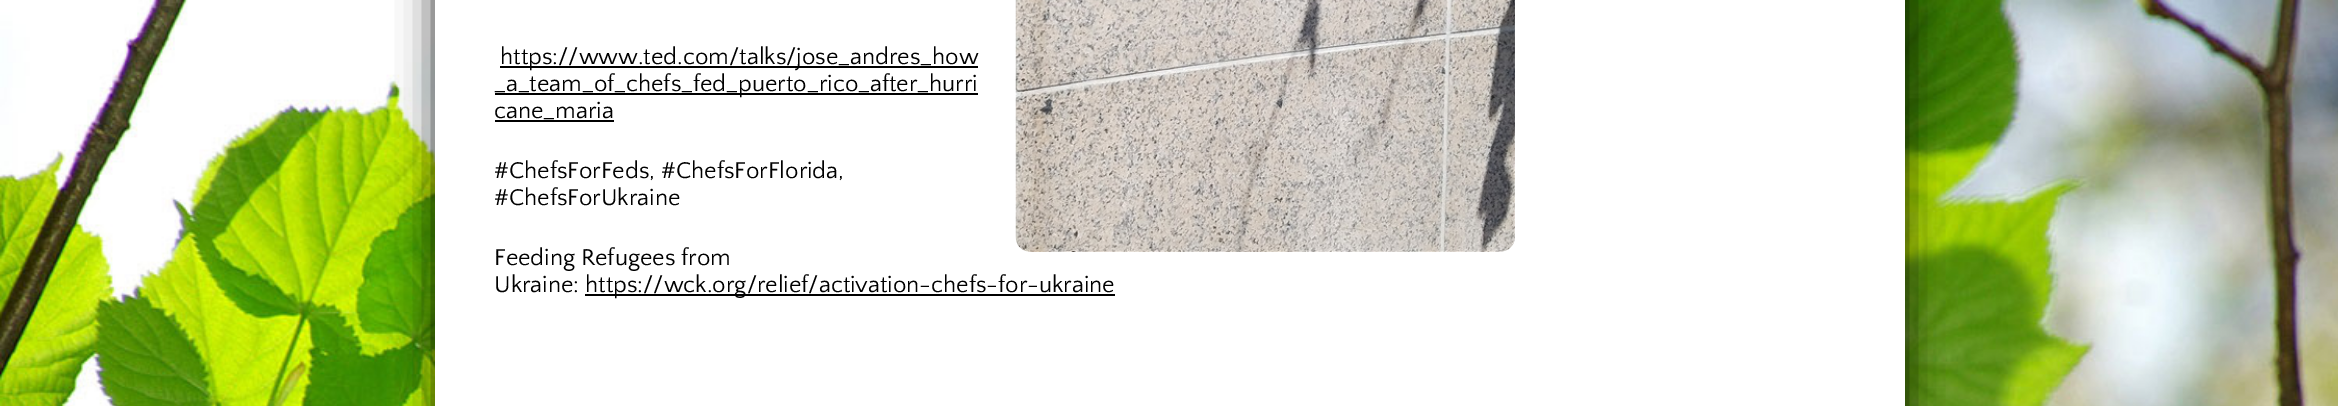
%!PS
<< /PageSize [2338 406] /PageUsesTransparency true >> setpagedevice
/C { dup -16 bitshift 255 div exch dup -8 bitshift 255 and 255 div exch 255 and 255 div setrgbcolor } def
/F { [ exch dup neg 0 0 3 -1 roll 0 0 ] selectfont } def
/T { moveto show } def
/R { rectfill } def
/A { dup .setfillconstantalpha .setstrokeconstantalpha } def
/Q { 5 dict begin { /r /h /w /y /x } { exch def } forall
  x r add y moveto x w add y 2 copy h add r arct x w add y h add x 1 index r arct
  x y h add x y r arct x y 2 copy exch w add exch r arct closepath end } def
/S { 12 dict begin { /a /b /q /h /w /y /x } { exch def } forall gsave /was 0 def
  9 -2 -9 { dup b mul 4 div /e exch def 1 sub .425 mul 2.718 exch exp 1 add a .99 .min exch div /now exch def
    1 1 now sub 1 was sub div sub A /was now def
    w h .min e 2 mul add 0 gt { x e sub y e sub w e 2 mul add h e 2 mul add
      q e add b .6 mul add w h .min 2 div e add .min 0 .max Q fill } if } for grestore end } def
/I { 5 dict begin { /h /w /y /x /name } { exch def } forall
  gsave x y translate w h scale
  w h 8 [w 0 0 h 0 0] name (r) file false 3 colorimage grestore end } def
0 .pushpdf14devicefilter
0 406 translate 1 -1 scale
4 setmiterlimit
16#FFFFFF C
0 0 2338 406 R
(1.rgb) 0 0 2338 406 I
16#000000 C
435 -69 1470 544 15 18 .8 S
16#FFFFFF C
435 0 1470 406 R
16#000000 C
500 66 478 2 R
/QuattrocentoSans-Regular 24 F
(https://www.ted.com/talks/jose_andres_how) 500 64 T
495 93 483 2 R
(_a_team_of_chefs_fed_puerto_rico_after_hurri) 494 91 T
(cane_maria) 494 118 T
495 120 119 2 R
(2.rgb) 1015 0 500 252 I
(#ChefsForFeds, #ChefsForFlorida,) 494 178 T
(#ChefsForUkraine) 494 205 T
(Feeding Refugees from) 494 265 T
(Ukraine:) 494 292 T
585 294 530 2 R
(https://wck.org/relief/activation-chefs-for-ukraine) 585 292 T
.poppdf14devicefilter showpage
